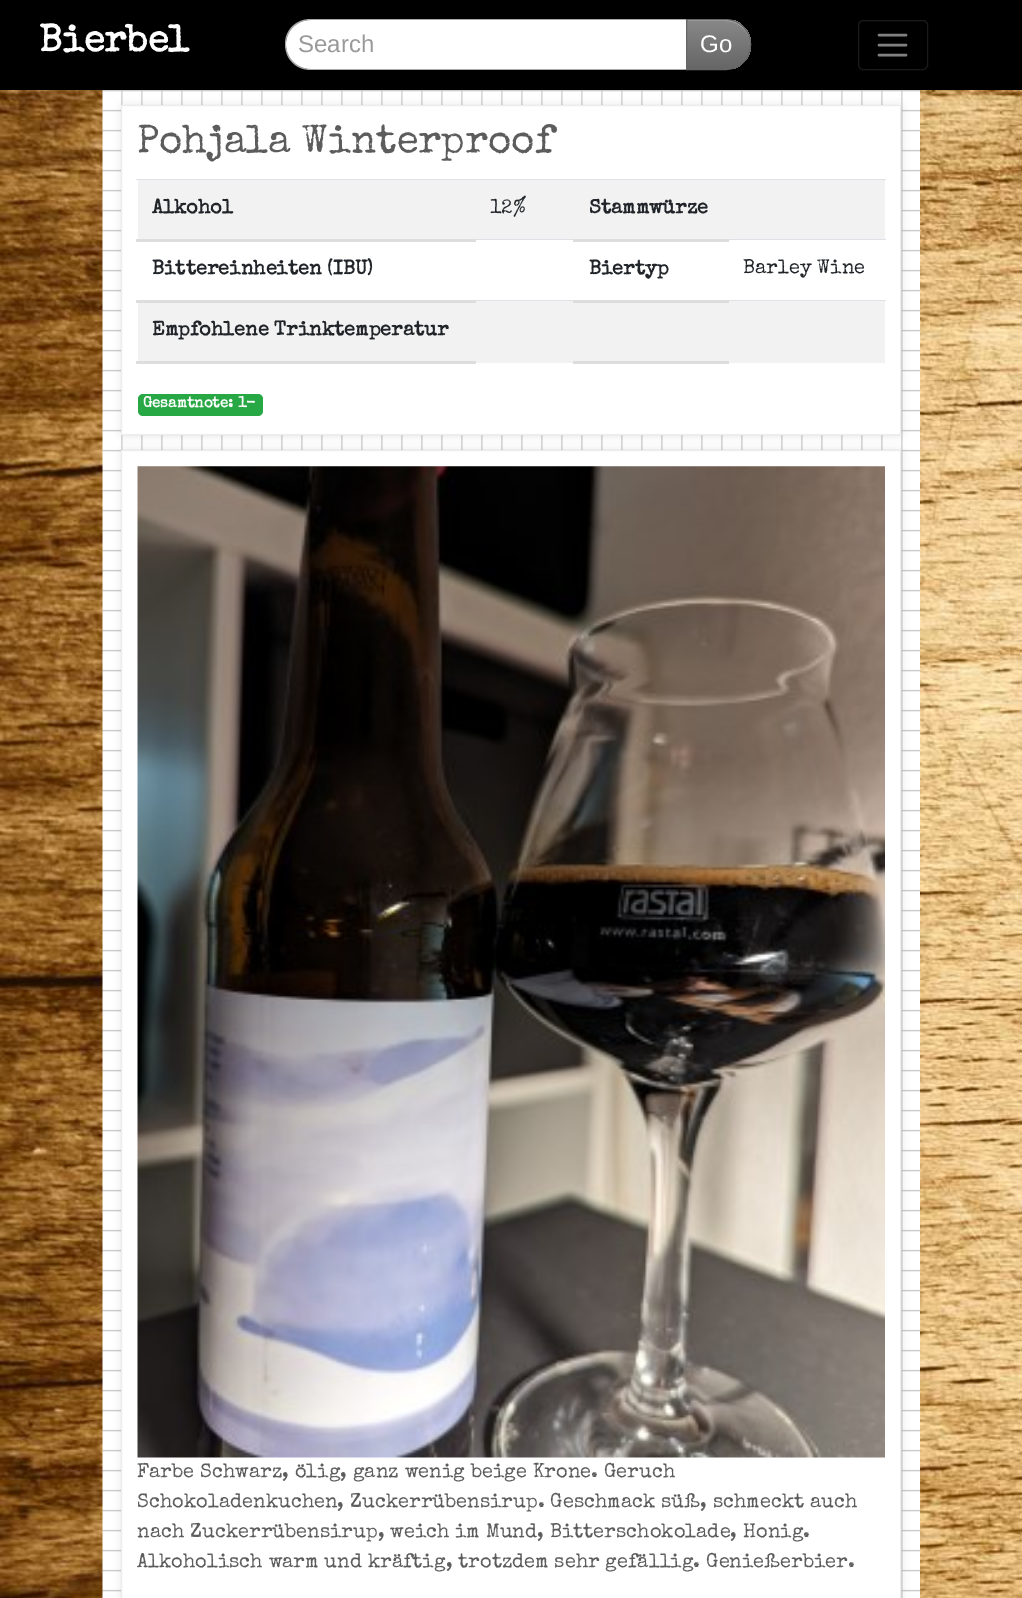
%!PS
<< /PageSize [1022 1598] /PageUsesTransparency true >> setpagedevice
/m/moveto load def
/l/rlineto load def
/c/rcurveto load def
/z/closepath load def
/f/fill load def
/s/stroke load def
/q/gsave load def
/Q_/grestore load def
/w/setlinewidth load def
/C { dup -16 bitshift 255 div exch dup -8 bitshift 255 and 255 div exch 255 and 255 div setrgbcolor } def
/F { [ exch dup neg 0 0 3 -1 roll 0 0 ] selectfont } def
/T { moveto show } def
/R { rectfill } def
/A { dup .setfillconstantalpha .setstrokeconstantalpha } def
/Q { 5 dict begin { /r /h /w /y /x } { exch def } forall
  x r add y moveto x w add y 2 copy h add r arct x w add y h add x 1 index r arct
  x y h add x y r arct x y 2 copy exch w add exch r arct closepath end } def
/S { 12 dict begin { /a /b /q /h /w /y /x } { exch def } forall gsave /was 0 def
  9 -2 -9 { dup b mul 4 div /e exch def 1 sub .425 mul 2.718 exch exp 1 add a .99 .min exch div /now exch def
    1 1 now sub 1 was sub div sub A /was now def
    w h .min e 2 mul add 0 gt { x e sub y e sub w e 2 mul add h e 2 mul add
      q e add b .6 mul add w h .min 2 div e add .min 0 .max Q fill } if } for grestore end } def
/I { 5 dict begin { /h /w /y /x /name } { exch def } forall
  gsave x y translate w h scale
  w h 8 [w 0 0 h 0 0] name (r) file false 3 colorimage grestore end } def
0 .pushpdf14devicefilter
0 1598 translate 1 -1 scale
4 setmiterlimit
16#FFFFFF C
0 0 1022 1598 R
(1.rgb) 0 90 1022 1508 I
16#000000 C
0 0 1022 90 R
/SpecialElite-Bold 38 F
16#FFFFFF C
(Bierbel) 39 51 T
310.5 20 m 375.5 0 l 0 49 l -375.5 0 l -13.5 0 -24.5 -11 -24.5 -24.5 c 0 -13.5 11 -24.5 24.5 -24.5 c z f
16#AAAAAA C
311 19 m 375 0 l 0 51 l -375 0 l -15 0 -26 -11 -26 -26 c 0 -14 11 -25 26 -25 c z 311 20 m 375 0 l 0 49 l -375 0 l -14 0 -25 -11 -25 -25 c 0 -13 11 -24 25 -24 c z eofill
/LiberationSans-Regular 24 F
16#999999 C
(Search) 298 52 T
q
686 19 m 39.5 0 l 14 0 25.5 11.5 25.5 25.5 c 0 14 -11.5 25.5 -25.5 25.5 c -39.5 0 l z clip newpath
q 687 20 m 64 0 l 0 49 l -64 0 l z clip newpath
<< /ShadingType 2 /ColorSpace /DeviceRGB /Coords [719 20 719 69] /Extend [true true] /Function << /FunctionType 2 /Domain [0 1] /C0 [.533 .533 .533] /C1 [.4 .4 .4] /N 1 >> >> shfill Q_
Q_
0.3 A
16#FFFFFF C
688 21 m 38 0 l 13 0 24 11 24 24 c 0 -1 l 0 -13 -11 -24 -24 -24 c -38 0 l z f
1 A
16#666666 C
686.5 19.5 m 39 0 l 14 0 25 11 25 25 c 0 14 -11 25 -25 25 c -39 0 l z s
16#FFFFFF C
(Go) 700 52 T
16#1A1A1A C
858.5 20.5 69 49 4.5 Q s
16#808080 C
2.5 w
1 setlinecap
879 35 m 27 0 l 879 45 m 27 0 l 879 55 m 27 0 l s
(2.rgb) 102 90 818 1508 I
16#000000 C
124 108 775 325 0 5 .2 S
16#FFFFFF C
121.5 105.5 m 779 0 l 0 329 l -779 0 l z q f Q_
16#EDEDED C
1 w
0 setlinecap
s
/SpecialElite-Regular 40 F
16#5C5C5C C
(Pohjala Winterproof) 137 152 T
16#F2F2F2 C
138 180 747 59 R
16#DEE2E6 C
136 179 750 1 R
474 239 101 1 R
16#DDDDDD C
136 239 340 3 R
/SpecialElite-Bold 20 F
16#212529 C
(Alkohol) 152 213 T
/SpecialElite-Regular 20 F
(12%) 490 213 T
16#DEE2E6 C
728 239 158 1 R
16#DDDDDD C
573 239 156 3 R
/SpecialElite-Bold 20 F
16#212529 C
(Stammwürze) 589 213 T
16#F2F2F2 C
138 301 747 62 R
16#DEE2E6 C
474 300 101 1 R
16#DDDDDD C
136 300 340 3 R
16#212529 C
(Bittereinheiten \(IBU\)) 152 274 T
16#DEE2E6 C
728 300 158 1 R
16#DDDDDD C
573 300 156 3 R
16#212529 C
(Biertyp) 589 274 T
/SpecialElite-Regular 20 F
(Barley Wine) 743 273 T
16#DDDDDD C
136 361 340 3 R
/SpecialElite-Bold 20 F
16#212529 C
(Empfohlene Trinktemperatur) 152 335 T
16#DDDDDD C
573 361 156 3 R
16#28A745 C
138 394 125 22 5 Q f
/SpecialElite-Bold 15 F
16#FFFFFF C
(Gesamtnote: 1-) 143 407 T
16#000000 C
124 453 775 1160 0 5 .2 S
16#FFFFFF C
121.5 450.5 m 779 0 l 0 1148 l -779 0 l z q f Q_
16#EDEDED C
s
(3.rgb) 137 466 748 992 I
/SpecialElite-Regular 20 F
16#5C5C5C C
(Farbe Schwarz, ölig, ganz wenig beige Krone. Geruch) 137 1477 T
(Schokoladenkuchen, Zuckerrübensirup. Geschmack süß, schmeckt auch) 137 1507 T
(nach Zuckerrübensirup, weich im Mund, Bitterschokolade, Honig.) 137 1537 T
(Alkoholisch warm und kräftig, trotzdem sehr gefällig. Genießerbier.) 137 1567 T
.poppdf14devicefilter showpage
